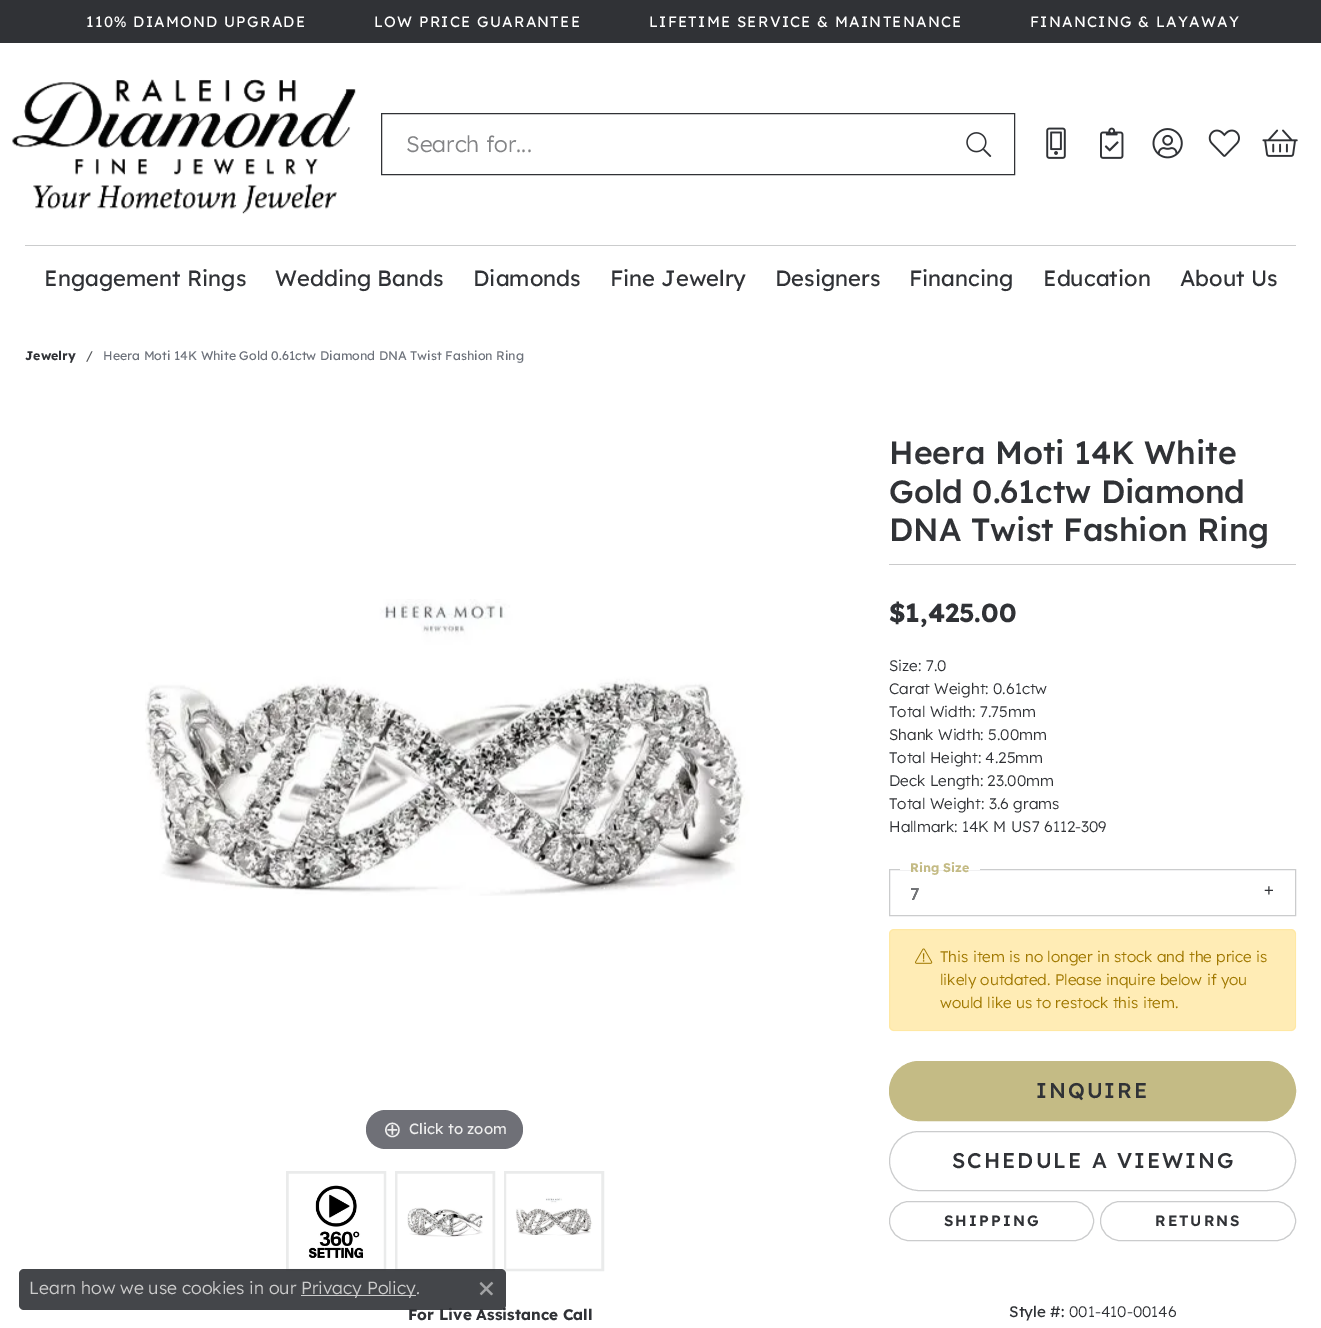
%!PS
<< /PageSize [1321 1328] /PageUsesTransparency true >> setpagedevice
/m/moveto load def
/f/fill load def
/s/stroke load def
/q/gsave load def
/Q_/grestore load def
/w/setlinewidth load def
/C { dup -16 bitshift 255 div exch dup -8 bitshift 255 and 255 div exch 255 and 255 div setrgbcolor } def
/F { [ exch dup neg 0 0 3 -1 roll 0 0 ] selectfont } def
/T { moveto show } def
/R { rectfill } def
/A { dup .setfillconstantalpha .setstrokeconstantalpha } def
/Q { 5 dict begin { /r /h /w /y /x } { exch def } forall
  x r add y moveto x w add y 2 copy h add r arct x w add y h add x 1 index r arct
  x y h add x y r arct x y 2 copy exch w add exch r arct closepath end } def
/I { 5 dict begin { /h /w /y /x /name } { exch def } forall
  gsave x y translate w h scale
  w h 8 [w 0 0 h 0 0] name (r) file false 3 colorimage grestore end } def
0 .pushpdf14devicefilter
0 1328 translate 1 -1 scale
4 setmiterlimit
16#FFFFFF C
0 0 1321 1328 R
16#303236 C
0 0 1321 43 R
/LexendDeca-Regular 15 F
16#FFFFFF C
86 27 m 1.25 0 (110% DIAMOND UPGRADE) ashow
374 27 m 1.25 0 (LOW PRICE GUARANTEE) ashow
649 27 m 1.25 0 (LIFETIME SERVICE & MAINTENANCE) ashow
1030 27 m 1.25 0 (FINANCING & LAYAWAY) ashow
(1.rgb) 12 79 344 135 I
16#303236 C
381.5 113.5 633 61 rectstroke
/LexendDeca-Light 22.5 F
16#838486 C
(Search for...) 406 152 T
(2.rgb) 966 132 26 25 I
(3.rgb) 1046 127 20 32 I
(4.rgb) 1100 127 24 32 I
(5.rgb) 1152 128 31 31 I
(6.rgb) 1208 129 32 28 I
(7.rgb) 1262 129 36 28 I
16#CBCCCD C
25 245 1271 1 R
/LexendDeca-Regular 22 F
16#303236 C
(Engagement Rings) 44 286 T
(Wedding Bands) 275 286 T
(Diamonds) 473 286 T
(Fine Jewelry) 610 286 T
(Designers) 775 286 T
(Financing) 909 286 T
(Education) 1043 286 T
(About Us) 1180 286 T
/LexendDeca-Bold 12.5 F
(Jewelry) 25 360 T
/LexendDeca-Regular 12.5 F
16#4F5154 C
(/) 86 360 T
16#6C717A C
(Heera Moti 14K White Gold 0.61ctw Diamond DNA Twist Fashion Ring) 103 360 T
(8.rgb) 145 599 605 297 I
16#6F7077 C
366 1110 157 39 19.5 Q f
/DejaVuSans-Regular 22.5 F
16#EEEEEE C
(⊕) 383 1137 T
/LexendDeca-Regular 15 F
(Click to zoom) 409 1134 T
16#EAEBEB C
3 w
287.5 1172.5 97 97 rectstroke
(9.rgb) 288 1173 96 96 I
396.5 1172.5 97 97 rectstroke
(10.rgb) 397 1173 96 96 I
505.5 1172.5 97 97 rectstroke
(11.rgb) 506 1173 96 96 I
/LexendDeca-Bold 15.3 F
16#303236 C
(For Live Assistance Call) 408 1320 T
/LexendDeca-Medium 32.1 F
(Heera Moti 14K White) 889 464 T
(Gold 0.61ctw Diamond) 889 503 T
(DNA Twist Fashion Ring) 889 541 T
16#CACACB C
889 564 407 1 R
/LexendDeca-Bold 26 F
16#303236 C
($1,425.00) 889 622 T
/LexendDeca-Light 15.3 F
(Size: 7.0) 889 671 T
(Carat Weight: 0.61ctw) 889 694 T
(Total Width: 7.75mm) 889 717 T
(Shank Width: 5.00mm) 889 740 T
(Total Height: 4.25mm) 889 763 T
(Deck Length: 23.00mm) 889 786 T
(Total Weight: 3.6 grams) 889 809 T
(Hallmark: 14K M US7 6112-309) 889 832 T
16#CBCCCD C
1 w
889.5 869.5 406 46 rectstroke
16#FFFFFF C
900 869 80 1 R
/LexendDeca-Bold 12.5 F
16#C4BB85 C
(Ring Size) 910 872 T
/LexendDeca-Regular 17 F
16#303236 C
(7) 910 900 T
/LiberationSans-Regular 17 F
(+) 1264 896 T
/LexendDeca-Regular 17 F
16#737578 C
(7) 910 900 T
16#FFECB5 C
889 929 407 102 5 Q f
0.1 A
16#FFC107 C
889.5 929.5 406 101 4.5 Q s
1 A
(12.rgb) 915 948 18 16 I
/LexendDeca-Light 15.3 F
16#A07800 C
(This item is no longer in stock and the price is) 940 962 T
(likely outdated. Please inquire below if you) 940 985 T
(would like us to restock this item.) 940 1008 T
16#C4BB85 C
889.5 1061.5 406 59 29.5 Q q f Q_
s
/LexendDeca-Medium 21.25 F
16#303236 C
1036 1098 m 2 0 (INQUIRE) ashow
16#CBCCCD C
889.5 1131.5 406 59 29.5 Q s
16#303236 C
952 1168 m 2 0 (SCHEDULE A VIEWING) ashow
16#CBCCCD C
889.5 1201.5 204 39 19.5 Q s
/LexendDeca-SemiBold 15 F
16#303236 C
944 1226 m 2 0 (SHIPPING) ashow
16#CBCCCD C
1100.5 1201.5 195 39 19.5 Q s
16#303236 C
1155 1226 m 2 0 (RETURNS) ashow
/LexendDeca-Regular 15.3 F
(Style #:) 1009 1317 T
/LexendDeca-Light 15.3 F
(001-410-00146) 1069 1317 T
0.9 A
19 1269 487 41 5 Q f
/LexendDeca-Light 17.5 F
1 A
16#CCCCCC C
(Learn how we use cookies in our) 29 1294 T
301 1295 115 1 R
(Privacy Policy.) 301 1294 T
(13.rgb) 479 1281 15 15 I
.poppdf14devicefilter showpage
